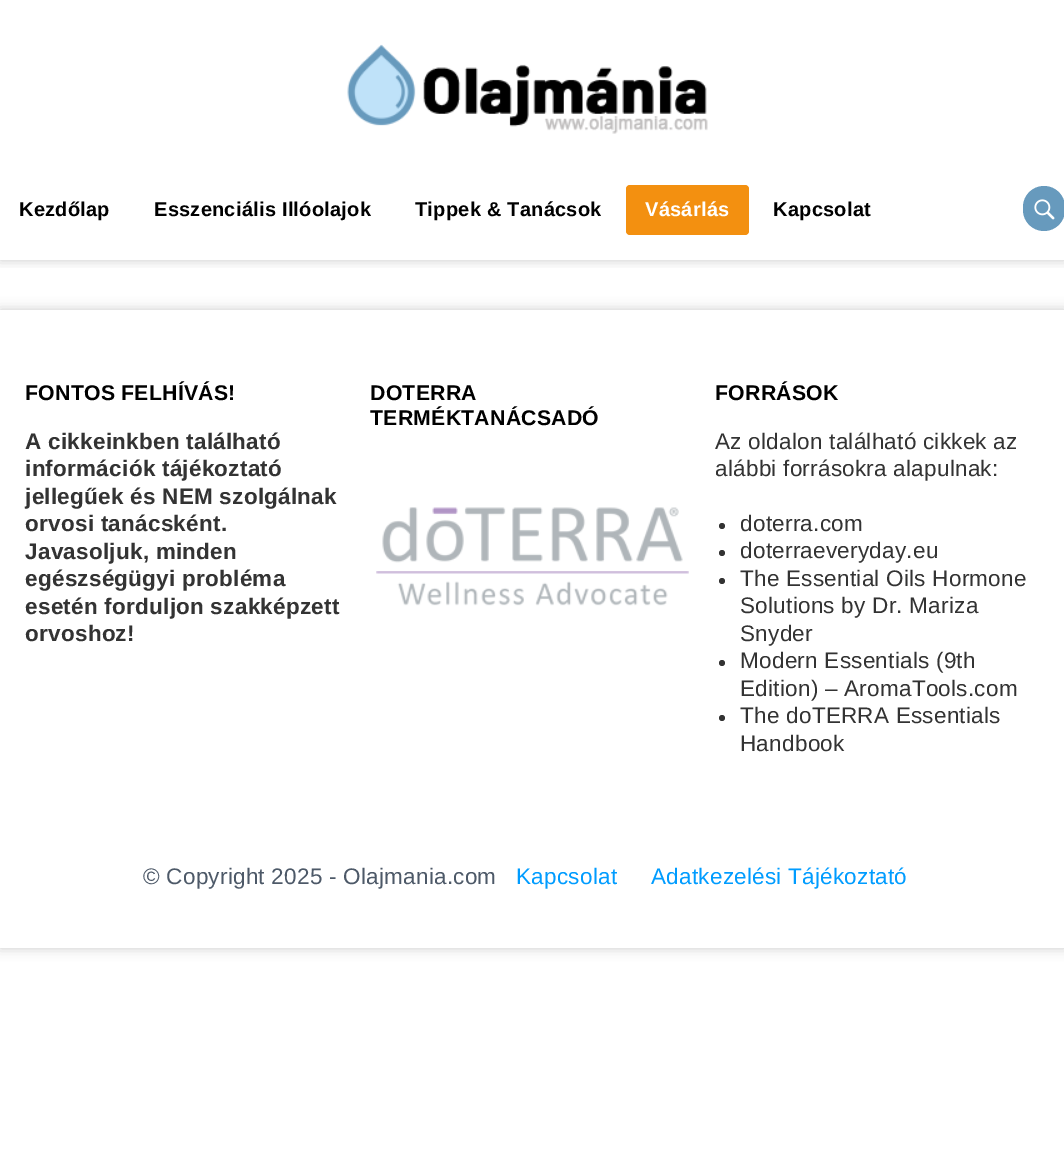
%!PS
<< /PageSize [1064 1153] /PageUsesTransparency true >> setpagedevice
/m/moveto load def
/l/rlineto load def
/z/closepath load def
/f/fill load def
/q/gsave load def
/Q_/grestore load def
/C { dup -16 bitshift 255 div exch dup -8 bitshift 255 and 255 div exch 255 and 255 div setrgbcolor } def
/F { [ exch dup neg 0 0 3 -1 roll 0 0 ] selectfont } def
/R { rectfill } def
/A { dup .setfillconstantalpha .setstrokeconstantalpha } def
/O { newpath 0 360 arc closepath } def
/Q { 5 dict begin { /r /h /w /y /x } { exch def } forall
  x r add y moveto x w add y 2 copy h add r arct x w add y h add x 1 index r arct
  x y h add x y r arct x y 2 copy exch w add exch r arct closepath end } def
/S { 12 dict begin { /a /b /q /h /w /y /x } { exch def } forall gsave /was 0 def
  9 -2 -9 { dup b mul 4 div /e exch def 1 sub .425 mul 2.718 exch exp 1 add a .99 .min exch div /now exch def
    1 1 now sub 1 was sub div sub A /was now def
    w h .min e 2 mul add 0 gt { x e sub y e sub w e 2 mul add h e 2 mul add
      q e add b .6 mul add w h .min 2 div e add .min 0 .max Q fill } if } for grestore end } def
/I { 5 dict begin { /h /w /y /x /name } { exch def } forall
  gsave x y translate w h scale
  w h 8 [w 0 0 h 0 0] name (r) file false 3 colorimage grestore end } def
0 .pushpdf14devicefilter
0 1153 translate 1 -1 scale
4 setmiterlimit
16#FFFFFF C
0 0 1064 1153 R
q
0 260 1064 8 rectclip
16#000000 C
0 0 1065 260 0 6 .2 S
Q_
(1.rgb) 347 44 361 90 I
/LiberationSans-Bold 20 F
16#000000 C
19 216 m .25 0 (Kezdőlap) ashow
154 216 m .25 0 (Esszenciális Illóolajok) ashow
415 216 m .25 0 (Tippek & Tanácsok) ashow
16#F39010 C
626 185 123 50 4 Q f
16#FFFFFF C
645 216 m .25 0 (Vásárlás) ashow
16#000000 C
773 216 m .25 0 (Kapcsolat) ashow
16#679ABD C
1023 186 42 45 21 Q f
(2.rgb) 1034 199 21 21 I
q
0 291 m 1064 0 l 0 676 l -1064 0 l z 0 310 m 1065 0 l 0 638 l -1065 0 l z eoclip newpath
16#000000 C
0 310 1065 638 0 6 .2 S
Q_
/LiberationSans-Bold 21.25 F
16#000000 C
25 400 m .25 0 (FONTOS FELHÍVÁS!) ashow
/LiberationSans-Bold 22.5 F
16#333333 C
25 449 m .25 0 (A cikkeinkben található) ashow
25 476 m .25 0 (információk tájékoztató) ashow
25 504 m .25 0 (jellegűek és NEM szolgálnak) ashow
25 531 m .25 0 (orvosi tanácsként.) ashow
25 559 m .25 0 (Javasoljuk, minden) ashow
25 586 m .25 0 (egészségügyi probléma) ashow
25 614 m .25 0 (esetén forduljon szakképzett) ashow
25 641 m .25 0 (orvoshoz!) ashow
/LiberationSans-Bold 21.25 F
16#000000 C
370 400 m .25 0 (DOTERRA) ashow
370 425 m .25 0 (TERMÉKTANÁCSADÓ) ashow
(3.rgb) 376 507 313 99 I
715 400 m .25 0 (FORRÁSOK) ashow
/LiberationSans-Regular 22.5 F
16#333333 C
715 449 m .25 0 (Az oldalon található cikkek az) ashow
715 476 m .25 0 (alábbi forrásokra alapulnak:) ashow
722 526 3 O f
740 531 m .25 0 (doterra.com) ashow
722 553 3 O f
740 558 m .25 0 (doterraeveryday.eu) ashow
722 581 3 O f
740 586 m .25 0 (The Essential Oils Hormone) ashow
740 613 m .25 0 (Solutions by Dr. Mariza) ashow
740 641 m .25 0 (Snyder) ashow
722 663 3 O f
740 668 m .25 0 (Modern Essentials \(9th) ashow
740 696 m .25 0 (Edition\) – AromaTools.com) ashow
722 718 3 O f
740 723 m .25 0 (The doTERRA Essentials) ashow
740 751 m .25 0 (Handbook) ashow
16#4D5968 C
143 884 m .25 0 (© Copyright 2025 - Olajmania.com) ashow
16#009CFF C
516 884 m .25 0 (Kapcsolat) ashow
651 884 m .25 0 (Adatkezelési Tájékoztató) ashow
.poppdf14devicefilter showpage
